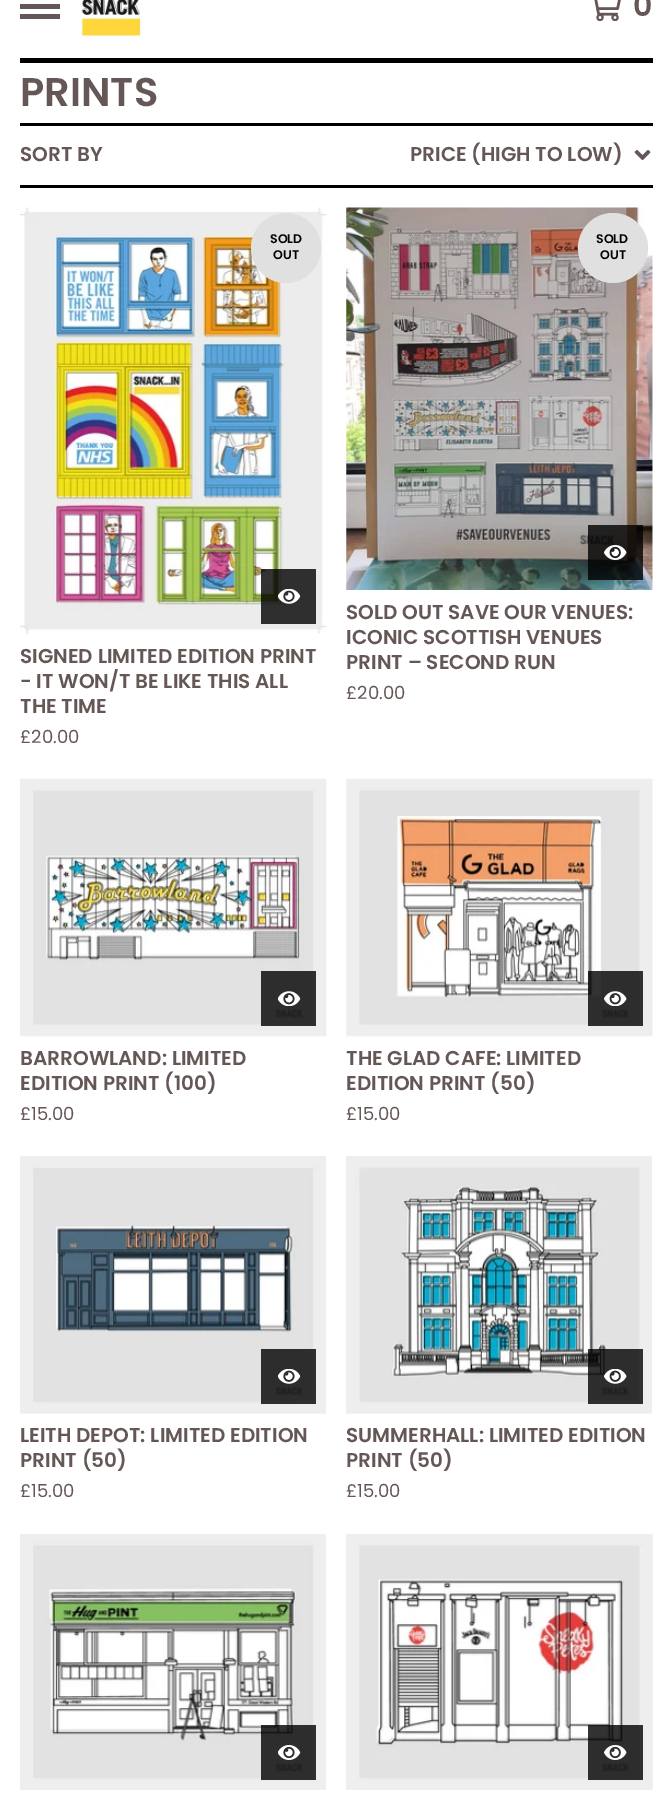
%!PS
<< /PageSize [672 1799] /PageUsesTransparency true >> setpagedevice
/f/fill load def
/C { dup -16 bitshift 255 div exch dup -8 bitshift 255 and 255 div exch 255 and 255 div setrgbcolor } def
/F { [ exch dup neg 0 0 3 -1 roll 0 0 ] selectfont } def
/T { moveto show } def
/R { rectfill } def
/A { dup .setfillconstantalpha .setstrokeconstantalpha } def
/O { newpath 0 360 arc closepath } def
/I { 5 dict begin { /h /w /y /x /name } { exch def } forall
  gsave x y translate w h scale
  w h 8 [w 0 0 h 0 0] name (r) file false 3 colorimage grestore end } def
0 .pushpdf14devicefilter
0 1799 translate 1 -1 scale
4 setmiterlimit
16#FFFFFF C
0 0 672 1799 R
16#000000 C
20 58 633 5 R
16#665757 C
20 4 40 5 R
20 14 40 5 R
(1.rgb) 81 0 61 38 I
(2.rgb) 594 0 27 21 I
/Poppins-SemiBold 30 F
(0) 633 16 T
16#000000 C
20 185 633 3 R
20 123 633 3 R
/Poppins-SemiBold 40 F
16#665757 C
(PRINTS) 20 106 T
/Poppins-SemiBold 20 F
(SORT BY) 20 161 T
(PRICE \(HIGH TO LOW\)) 410 161 T
(3.rgb) 634 150 17 10 I
(4.rgb) 20 207 307 427 I
16#E0E0E0 C
286 248 35 O f
/Poppins-SemiBold 12.5 F
16#000000 C
(SOLD) 270 243 T
(OUT) 273 259 T
0.8 A
261 569 55 55 R
1 A
(5.rgb) 278 589 23 15 I
/Poppins-SemiBold 20 F
16#665757 C
(SIGNED LIMITED EDITION PRINT) 20 663 T
(- IT WON/T BE LIKE THIS ALL) 20 688 T
(THE TIME) 20 713 T
/Poppins-Regular 18 F
(£20.00) 20 743 T
(6.rgb) 346 207 307 383 I
16#E0E0E0 C
613 248 35 O f
/Poppins-SemiBold 12.5 F
16#000000 C
(SOLD) 596 243 T
(OUT) 600 259 T
0.8 A
588 525 55 55 R
1 A
(7.rgb) 604 545 23 15 I
/Poppins-SemiBold 20 F
16#665757 C
(SOLD OUT SAVE OUR VENUES:) 346 619 T
(ICONIC SCOTTISH VENUES) 346 644 T
(PRINT – SECOND RUN) 346 669 T
/Poppins-Regular 18 F
(£20.00) 346 699 T
(8.rgb) 20 778 307 259 I
0.8 A
16#000000 C
261 971 55 55 R
1 A
(9.rgb) 278 991 23 15 I
/Poppins-SemiBold 20 F
16#665757 C
(BARROWLAND: LIMITED) 20 1065 T
(EDITION PRINT \(100\)) 20 1090 T
/Poppins-Regular 18 F
(£15.00) 20 1120 T
(10.rgb) 346 778 307 259 I
0.8 A
16#000000 C
588 971 55 55 R
1 A
(11.rgb) 604 991 23 15 I
/Poppins-SemiBold 20 F
16#665757 C
(THE GLAD CAFE: LIMITED) 346 1065 T
(EDITION PRINT \(50\)) 346 1090 T
/Poppins-Regular 18 F
(£15.00) 346 1120 T
(12.rgb) 20 1156 306 258 I
0.8 A
16#000000 C
261 1349 55 55 R
1 A
(13.rgb) 278 1369 23 15 I
/Poppins-SemiBold 20 F
16#665757 C
(LEITH DEPOT: LIMITED EDITION) 20 1442 T
(PRINT \(50\)) 20 1467 T
/Poppins-Regular 18 F
(£15.00) 20 1497 T
(14.rgb) 346 1156 306 258 I
0.8 A
16#000000 C
588 1349 55 55 R
1 A
(15.rgb) 604 1369 23 15 I
/Poppins-SemiBold 20 F
16#665757 C
(SUMMERHALL: LIMITED EDITION) 346 1442 T
(PRINT \(50\)) 346 1467 T
/Poppins-Regular 18 F
(£15.00) 346 1497 T
(16.rgb) 20 1534 306 256 I
0.8 A
16#000000 C
261 1725 55 55 R
1 A
(17.rgb) 278 1745 23 15 I
(18.rgb) 346 1534 307 256 I
0.8 A
588 1725 55 55 R
1 A
(19.rgb) 604 1745 23 15 I
.poppdf14devicefilter showpage
